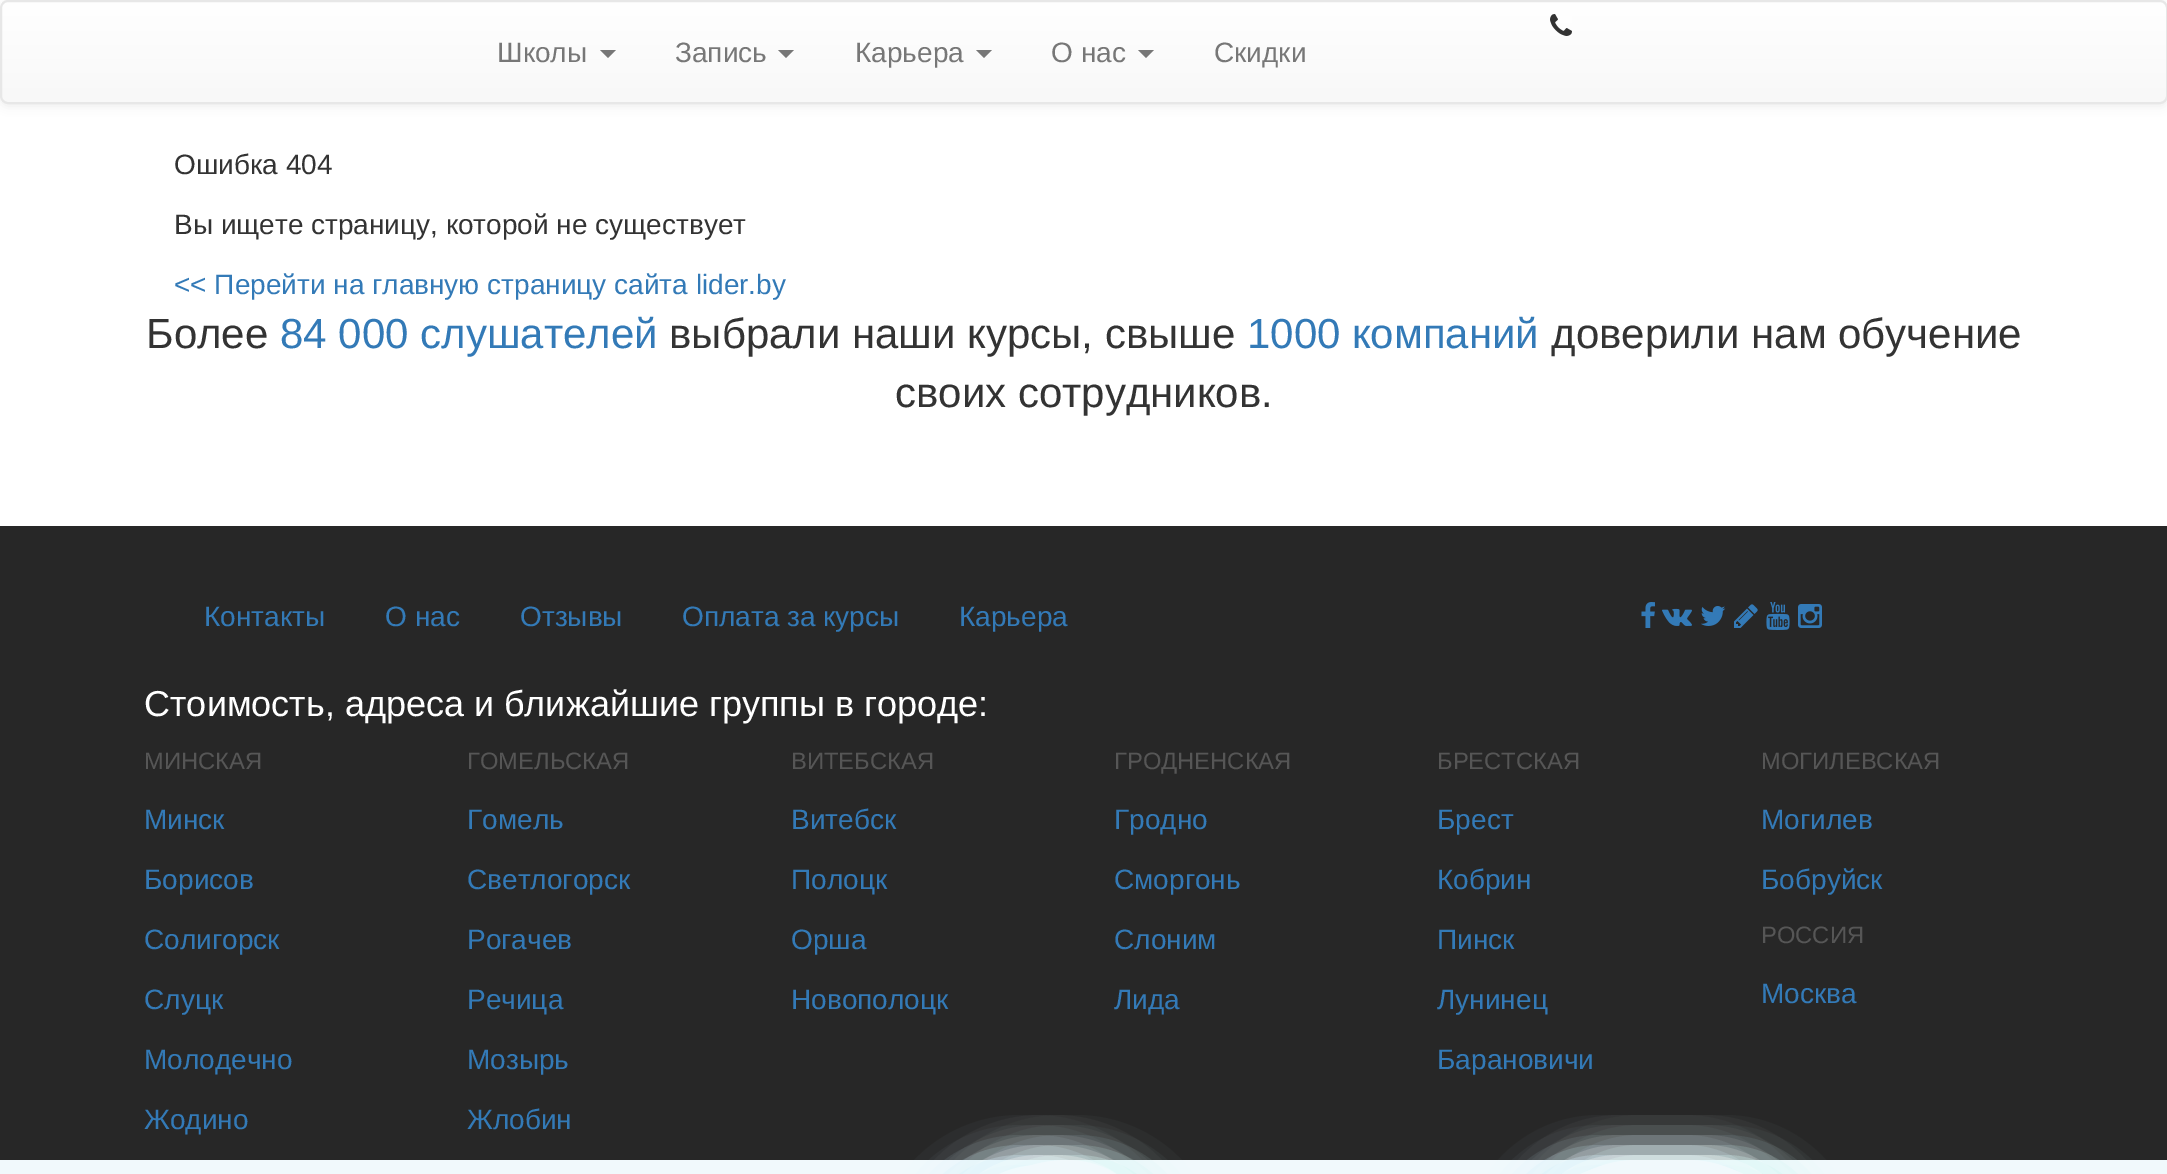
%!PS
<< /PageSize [2167 1174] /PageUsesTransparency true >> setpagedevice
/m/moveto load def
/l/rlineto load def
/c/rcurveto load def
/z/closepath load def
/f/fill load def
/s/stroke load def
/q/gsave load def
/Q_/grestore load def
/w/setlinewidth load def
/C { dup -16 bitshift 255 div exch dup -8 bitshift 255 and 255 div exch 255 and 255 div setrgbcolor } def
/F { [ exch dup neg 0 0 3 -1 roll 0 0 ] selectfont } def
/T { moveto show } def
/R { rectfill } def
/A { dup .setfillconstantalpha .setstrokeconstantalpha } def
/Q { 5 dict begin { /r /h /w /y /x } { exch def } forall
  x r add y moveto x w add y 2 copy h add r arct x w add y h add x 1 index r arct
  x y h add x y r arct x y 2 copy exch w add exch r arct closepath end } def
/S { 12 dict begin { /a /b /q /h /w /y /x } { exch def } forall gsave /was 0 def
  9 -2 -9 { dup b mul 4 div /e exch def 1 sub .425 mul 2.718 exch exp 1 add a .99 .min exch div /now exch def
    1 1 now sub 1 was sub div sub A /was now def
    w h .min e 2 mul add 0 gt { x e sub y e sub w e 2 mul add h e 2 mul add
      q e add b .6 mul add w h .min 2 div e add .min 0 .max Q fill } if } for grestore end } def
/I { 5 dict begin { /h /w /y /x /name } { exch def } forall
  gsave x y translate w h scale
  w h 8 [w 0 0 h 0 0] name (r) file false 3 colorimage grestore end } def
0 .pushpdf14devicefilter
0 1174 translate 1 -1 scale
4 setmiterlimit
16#FFFFFF C
0 0 2167 1174 R
16#000000 C
0 2 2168 104 8 5 .07 S
q
0 0 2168 104 8 Q clip newpath
q 0 2 m 2167 0 l 0 100 l -2167 0 l z clip newpath
<< /ShadingType 2 /ColorSpace /DeviceRGB /Coords [1084 2 1084 102] /Extend [true true] /Function << /FunctionType 2 /Domain [0 1] /C0 [1 1 1] /C1 [.973 .973 .973] /N 1 >> >> shfill Q_
Q_
16#E7E7E7 C
2 w
1 1 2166 102 7 Q s
(1.rgb) 1550 14 22 22 I
/LiberationSans-Regular 28 F
16#777777 C
(Школы) 497 62 T
600 50 m 16 0 l -8 8 l z f
(Запись) 675 62 T
778 50 m 16 0 l -8 8 l z f
(Карьера) 855 62 T
976 50 m 16 0 l -8 8 l z f
(О нас) 1051 62 T
1138 50 m 16 0 l -8 8 l z f
(Скидки) 1214 62 T
16#333333 C
(Ошибка 404) 174 174 T
(Вы ищете страницу, которой не существует) 174 234 T
16#337AB7 C
(<< Перейти на главную страницу сайта lider.by) 174 294 T
/LiberationSans-Regular 42 F
16#333333 C
(Более) 146 348 T
16#337AB7 C
(84 000 слушателей) 280 348 T
16#333333 C
(выбрали наши курсы, свыше) 669 348 T
16#337AB7 C
(1000 компаний) 1247 348 T
16#333333 C
(доверили нам обучение) 1551 348 T
(своих сотрудников.) 895 407 T
16#272727 C
0 526 2167 634 R
/LiberationSans-Regular 28 F
16#337AB7 C
(Контакты) 204 626 T
(О нас) 385 626 T
(Отзывы) 520 626 T
(Оплата за курсы) 682 626 T
(Карьера) 959 626 T
(2.rgb) 1641 602 14 26 I
(3.rgb) 1662 608 30 18 I
(4.rgb) 1701 606 25 20 I
(5.rgb) 1734 604 24 24 I
(6.rgb) 1766 602 24 28 I
(7.rgb) 1798 604 24 24 I
/LiberationSans-Regular 36 F
16#FFFFFF C
(Стоимость, адреса и ближайшие группы в городе:) 144 716 T
/LiberationSans-Regular 23.75 F
16#565656 C
(МИНСКАЯ) 144 769 T
/LiberationSans-Regular 28 F
16#337AB7 C
(Минск) 144 829 T
(Борисов) 144 889 T
(Солигорск) 144 949 T
(Слуцк) 144 1009 T
(Молодечно) 144 1069 T
(Жодино) 144 1129 T
/LiberationSans-Regular 23.75 F
16#565656 C
(ГОМЕЛЬСКАЯ) 467 769 T
/LiberationSans-Regular 28 F
16#337AB7 C
(Гомель) 467 829 T
(Светлогорск) 467 889 T
(Рогачев) 467 949 T
(Речица) 467 1009 T
(Мозырь) 467 1069 T
(Жлобин) 467 1129 T
/LiberationSans-Regular 23.75 F
16#565656 C
(ВИТЕБСКАЯ) 791 769 T
/LiberationSans-Regular 28 F
16#337AB7 C
(Витебск) 791 829 T
(Полоцк) 791 889 T
(Орша) 791 949 T
(Новополоцк) 791 1009 T
/LiberationSans-Regular 23.75 F
16#565656 C
(ГРОДНЕНСКАЯ) 1114 769 T
/LiberationSans-Regular 28 F
16#337AB7 C
(Гродно) 1114 829 T
(Сморгонь) 1114 889 T
(Слоним) 1114 949 T
(Лида) 1114 1009 T
/LiberationSans-Regular 23.75 F
16#565656 C
(БРЕСТСКАЯ) 1437 769 T
/LiberationSans-Regular 28 F
16#337AB7 C
(Брест) 1437 829 T
(Кобрин) 1437 889 T
(Пинск) 1437 949 T
(Лунинец) 1437 1009 T
(Барановичи) 1437 1069 T
/LiberationSans-Regular 23.75 F
16#565656 C
(МОГИЛЕВСКАЯ) 1761 769 T
/LiberationSans-Regular 28 F
16#337AB7 C
(Могилев) 1761 829 T
(Бобруйск) 1761 889 T
/LiberationSans-Regular 23.75 F
16#565656 C
(РОССИЯ) 1761 943 T
/LiberationSans-Regular 28 F
16#337AB7 C
(Москва) 1761 1003 T
16#F1F9FC C
0 1160 2167 14 R
16#C5F2ED C
958 1160 220 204 130 20 1 S
16#C8EBF8 C
918 1160 220 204 130 20 1 S
16#FFFFFF C
938 1160 220 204 130 20 1 S
16#F1F9FC C
1068 1160 m 49.5 0 90 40.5 90 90 c 0 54 l -220 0 l 0 -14 l 0 -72 58 -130 130 -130 c z f
16#C5F2ED C
1548 1160 268 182 108 20 1 S
16#C8EBF8 C
1508 1160 268 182 108 20 1 S
16#FFFFFF C
1528 1160 268 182 108 20 1 S
16#F1F9FC C
1636 1160 m 52 0 l 59.5 0 108 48.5 108 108 c 0 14 l -268 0 l 0 -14 l 0 -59.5 48.5 -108 108 -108 c z f
.poppdf14devicefilter showpage
